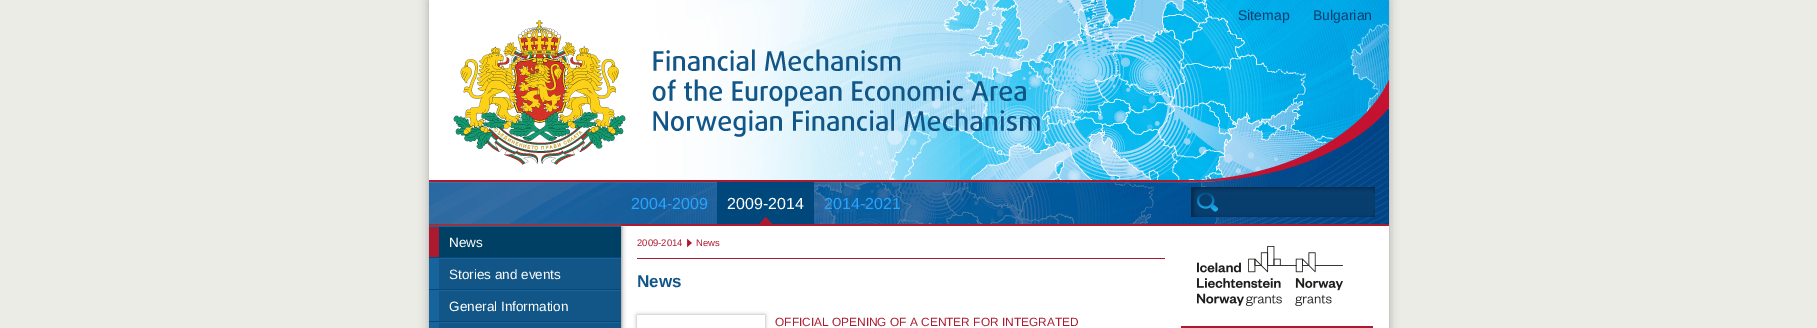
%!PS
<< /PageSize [1817 328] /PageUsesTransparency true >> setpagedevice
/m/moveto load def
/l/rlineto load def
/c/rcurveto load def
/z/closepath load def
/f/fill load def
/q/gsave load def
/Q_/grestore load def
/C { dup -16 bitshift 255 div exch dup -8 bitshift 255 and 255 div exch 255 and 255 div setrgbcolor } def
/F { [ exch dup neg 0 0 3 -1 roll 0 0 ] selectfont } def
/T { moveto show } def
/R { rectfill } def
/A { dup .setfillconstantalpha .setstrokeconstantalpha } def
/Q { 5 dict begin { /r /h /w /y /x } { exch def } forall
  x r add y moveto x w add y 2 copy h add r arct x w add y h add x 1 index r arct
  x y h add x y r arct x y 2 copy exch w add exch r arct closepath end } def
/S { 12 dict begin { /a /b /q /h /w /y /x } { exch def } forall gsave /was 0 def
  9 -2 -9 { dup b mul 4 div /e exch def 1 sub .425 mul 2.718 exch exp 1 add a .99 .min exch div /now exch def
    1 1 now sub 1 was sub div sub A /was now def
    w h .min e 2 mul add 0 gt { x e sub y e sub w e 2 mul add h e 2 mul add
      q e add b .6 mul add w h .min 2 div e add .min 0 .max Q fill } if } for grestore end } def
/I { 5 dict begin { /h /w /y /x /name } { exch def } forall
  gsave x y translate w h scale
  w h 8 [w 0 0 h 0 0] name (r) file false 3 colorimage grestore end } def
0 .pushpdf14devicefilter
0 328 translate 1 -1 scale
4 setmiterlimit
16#ECECE7 C
0 0 1817 328 R
16#A3A3A3 C
429 0 960 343 0 5 1 S
16#FFFFFF C
621 226 768 102 R
(1.rgb) 429 0 960 226 I
/LiberationSans-Regular 14 F
16#083E6E C
(Sitemap) 1238 20 T
(Bulgarian) 1313 20 T
(2.rgb) 453 20 587 145 I
/LiberationSans-Regular 16 F
16#26A4FF C
(2004-2009) 631 209 T
16#00487C C
717 182 97 42 R
(3.rgb) 759 217 14 7 I
16#FFFFFF C
(2009-2014) 727 209 T
16#26A4FF C
(2014-2021) 824 209 T
(4.rgb) 1191 187 184 30 I
(5.rgb) 1197 192 21 20 I
q
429 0 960 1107 rectclip
16#666666 C
429 226 192 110 0 2.5 1 S
Q_
16#125687 C
439 259 182 69 R
16#17649C C
429 226 192 1 R
16#084977 C
429 257 192 1 R
16#004065 C
439 227 182 30 R
16#AC1A2F C
429 227 10 30 R
/LiberationSans-Regular 13.5 F
16#FFFFFF C
(News) 449 247 T
16#17649C C
429 258 192 1 R
16#084977 C
429 289 192 1 R
16#17649C C
429 259 10 30 R
16#FFFFFF C
(Stories and events) 449 279 T
16#17649C C
429 290 192 1 R
16#084977 C
429 321 192 1 R
16#17649C C
429 291 10 30 R
16#FFFFFF C
(General Information) 449 311 T
16#17649C C
429 322 192 1 R
429 323 10 5 R
16#AC1A2F C
637 258 528 1 R
/LiberationSans-Regular 9.5 F
(2009-2014) 637 246 T
(6.rgb) 687 238 5 10 I
(News) 696 246 T
/LiberationSans-Bold 17 F
16#125687 C
(News) 637 287 T
q
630 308 m 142 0 l 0 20 l -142 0 l z 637 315 m 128 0 l 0 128 l -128 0 l z eoclip newpath
16#A3A3A3 C
637 315 128 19 0 2 1 S
Q_
/LiberationSans-Regular 11.9 F
16#AC1A2F C
(OFFICIAL OPENING OF A CENTER FOR INTEGRATED) 775 326 T
(7.rgb) 1197 246 146 60 I
1181 326 m 192 0 l 0 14.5 -11.5 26 -26 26 c -166 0 l z f
.poppdf14devicefilter showpage
